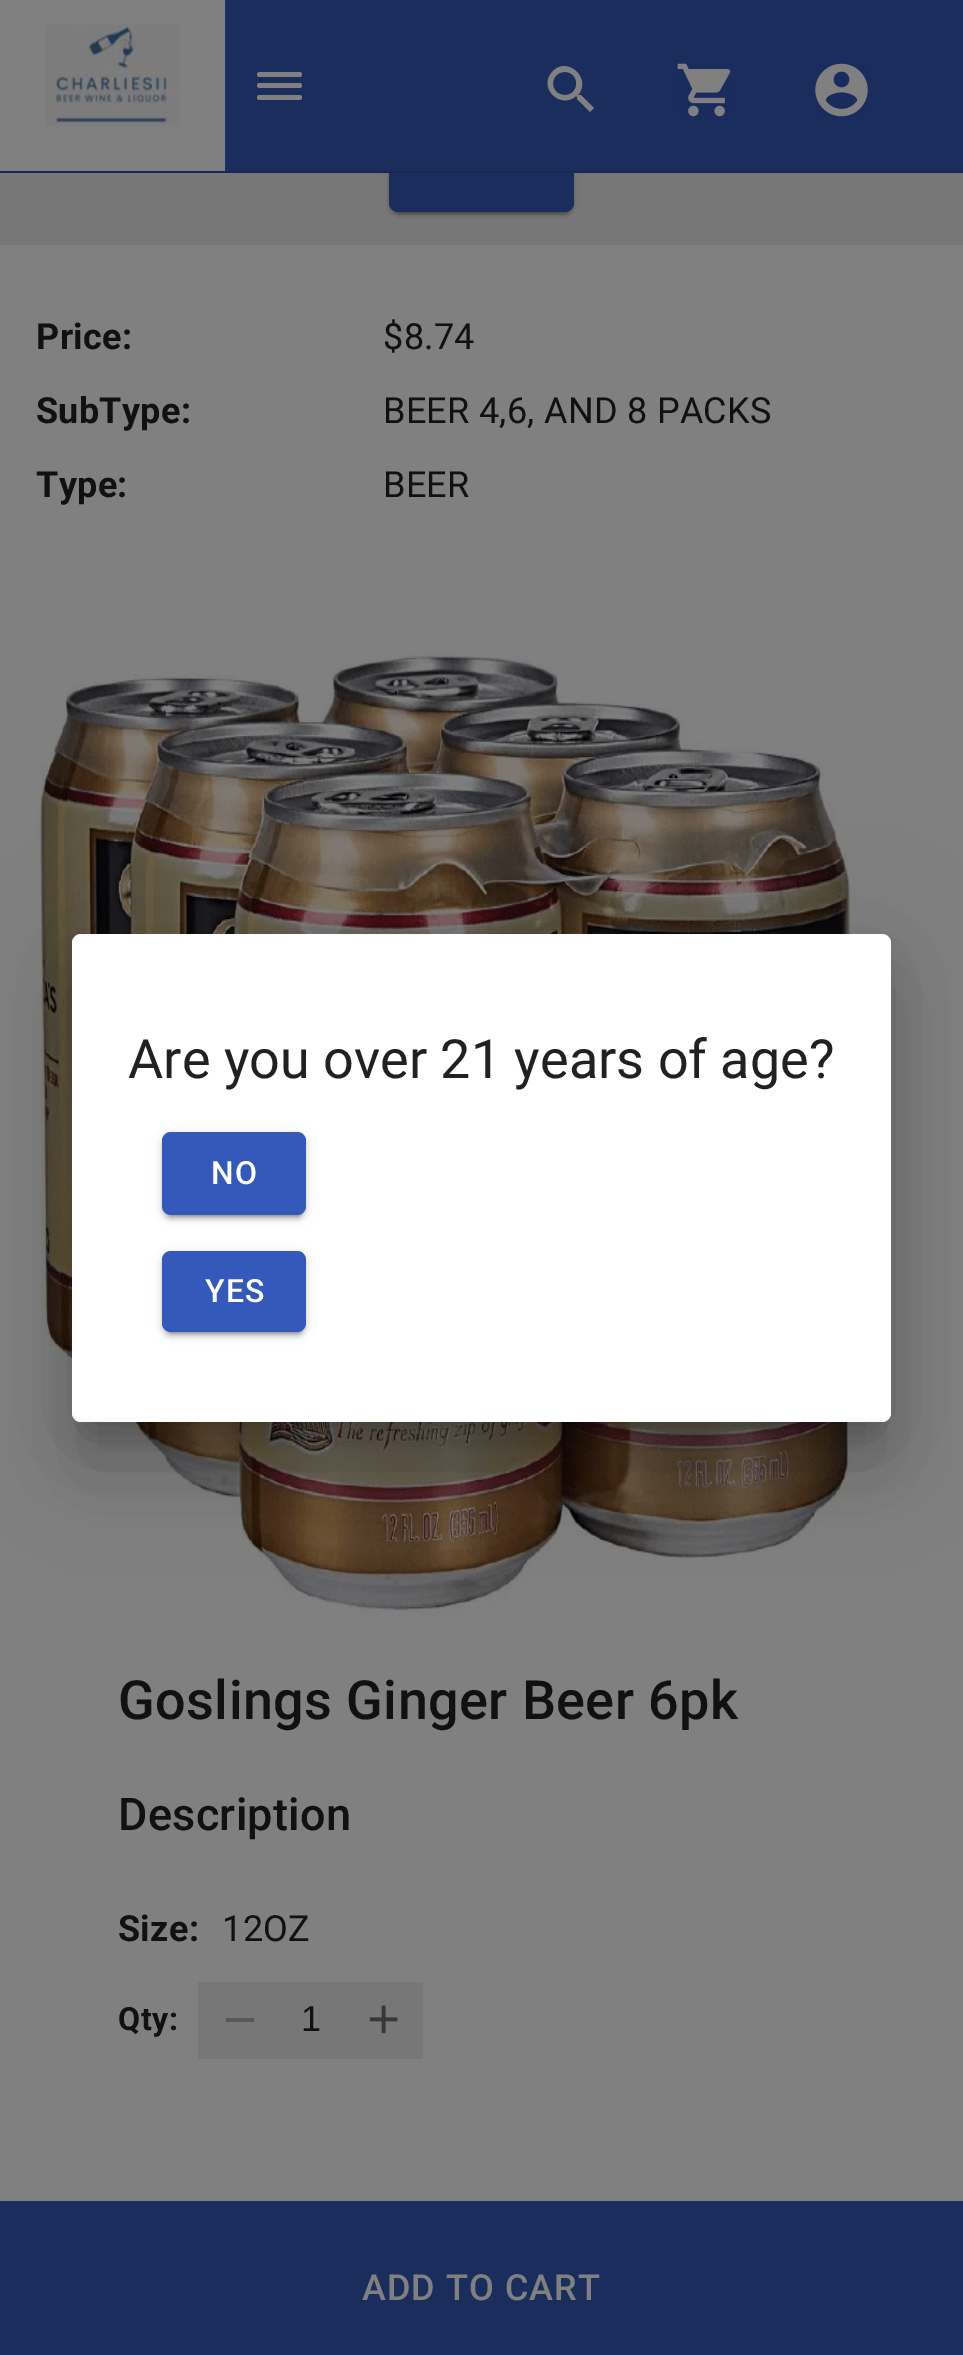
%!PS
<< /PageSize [963 2355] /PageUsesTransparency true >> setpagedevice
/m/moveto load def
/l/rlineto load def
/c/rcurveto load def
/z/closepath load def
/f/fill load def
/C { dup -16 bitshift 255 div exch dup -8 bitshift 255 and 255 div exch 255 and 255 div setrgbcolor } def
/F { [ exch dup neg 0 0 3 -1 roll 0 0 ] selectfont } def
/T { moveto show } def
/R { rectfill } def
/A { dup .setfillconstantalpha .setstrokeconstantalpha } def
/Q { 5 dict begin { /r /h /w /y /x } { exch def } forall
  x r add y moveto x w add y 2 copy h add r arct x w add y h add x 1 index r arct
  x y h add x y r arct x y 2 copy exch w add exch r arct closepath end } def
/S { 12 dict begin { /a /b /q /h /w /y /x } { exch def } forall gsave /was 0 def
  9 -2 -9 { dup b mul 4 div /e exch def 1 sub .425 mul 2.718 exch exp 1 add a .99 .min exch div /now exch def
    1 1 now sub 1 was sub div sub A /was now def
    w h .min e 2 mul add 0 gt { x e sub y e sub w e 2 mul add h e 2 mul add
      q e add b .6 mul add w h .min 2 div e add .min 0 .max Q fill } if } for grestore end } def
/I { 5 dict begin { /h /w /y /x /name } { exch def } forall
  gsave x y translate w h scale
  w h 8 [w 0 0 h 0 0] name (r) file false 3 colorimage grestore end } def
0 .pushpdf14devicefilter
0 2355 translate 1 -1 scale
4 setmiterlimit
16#808080 C
0 0 963 2355 R
16#777777 C
0 173 963 72 R
16#000000 C
389 140 185 74 9 5.5 .12 S
389 142 185 74 9 2 .14 S
394 149 175 65 5 1 .2 S
16#1A2D5D C
389 137 185 75 9 Q f
225 0 738 171 R
16#172752 C
0 171 963 2 R
(1.rgb) 45 24 135 103 I
16#808080 C
257 72 45 5 2.5 Q f
257 83 45 5 2.5 Q f
257 95 45 5 2.5 Q f
581 95 m -2 0 l -1 0 l 14 -16 -10 -39 -25 -24 c -16 16 7 39 23 25 c 1 1 l 0 2 l 13 13 l 4 -4 l z 565 95 m -16 0 -16 -23 0 -23 c 15 0 15 23 0 23 c z f
(2.rgb) 677 63 54 54 I
(3.rgb) 815 63 53 54 I
/Roboto-Bold 36 F
16#111111 C
36 349 m .3 0 (Price:) ashow
/Roboto-Regular 36 F
383 349 m .3 0 ($8.74) ashow
/Roboto-Bold 36 F
36 423 m .3 0 (SubType:) ashow
/Roboto-Regular 36 F
383 423 m .3 0 (BEER 4,6, AND 8 PACKS) ashow
/Roboto-Bold 36 F
36 497 m .3 0 (Type:) ashow
/Roboto-Regular 36 F
383 497 m .3 0 (BEER) ashow
(4.rgb) 37 652 817 967 I
/Roboto-Medium 54 F
118 1719 m .4 0 (Goslings Ginger Beer 6pk) ashow
/Roboto-Medium 45 F
118 1830 m .3 0 (Description) ashow
/Roboto-Bold 36 F
118 1941 m .3 0 (Size:) ashow
/Roboto-Regular 36 F
222 1941 m .3 0 (12OZ) ashow
/Roboto-Bold 32 F
118 2030 m .5 0 (Qty:) ashow
16#777777 C
198 1982 225 77 R
16#585858 C
226 2018 28 4 R
/LiberationSans-Regular 36 F
16#111111 C
(1) 301 2031 T
(5.rgb) 369 2005 29 29 I
16#1A2D5D C
0 2201 963 154 R
/Roboto-Medium 36 F
16#808080 C
362 2300 m 1 0 (ADD TO CART) ashow
16#000000 C
54 936 855 524 27 52 .12 S
65 981 833 502 16 43 .14 S
88 974 787 457 0 17 .2 S
16#FFFFFF C
72 934 819 488 9 Q f
/Roboto-Regular 54 F
16#212121 C
(Are you over 21 years of age?) 128 1078 T
16#000000 C
162 1134 144 83 9 5.5 .12 S
162 1136 144 84 9 2 .14 S
167 1143 135 74 5 1 .2 S
16#3459BA C
162 1132 144 83 9 Q f
/Roboto-Medium 32 F
16#FFFFFF C
211 1184 m 1 0 (NO) ashow
16#000000 C
162 1253 144 81 9 5.5 .12 S
162 1256 144 81 9 2 .14 S
167 1262 135 72 5 1 .2 S
16#3459BA C
162 1251 144 81 9 Q f
16#FFFFFF C
205 1302 m 1 0 (YES) ashow
.poppdf14devicefilter showpage
